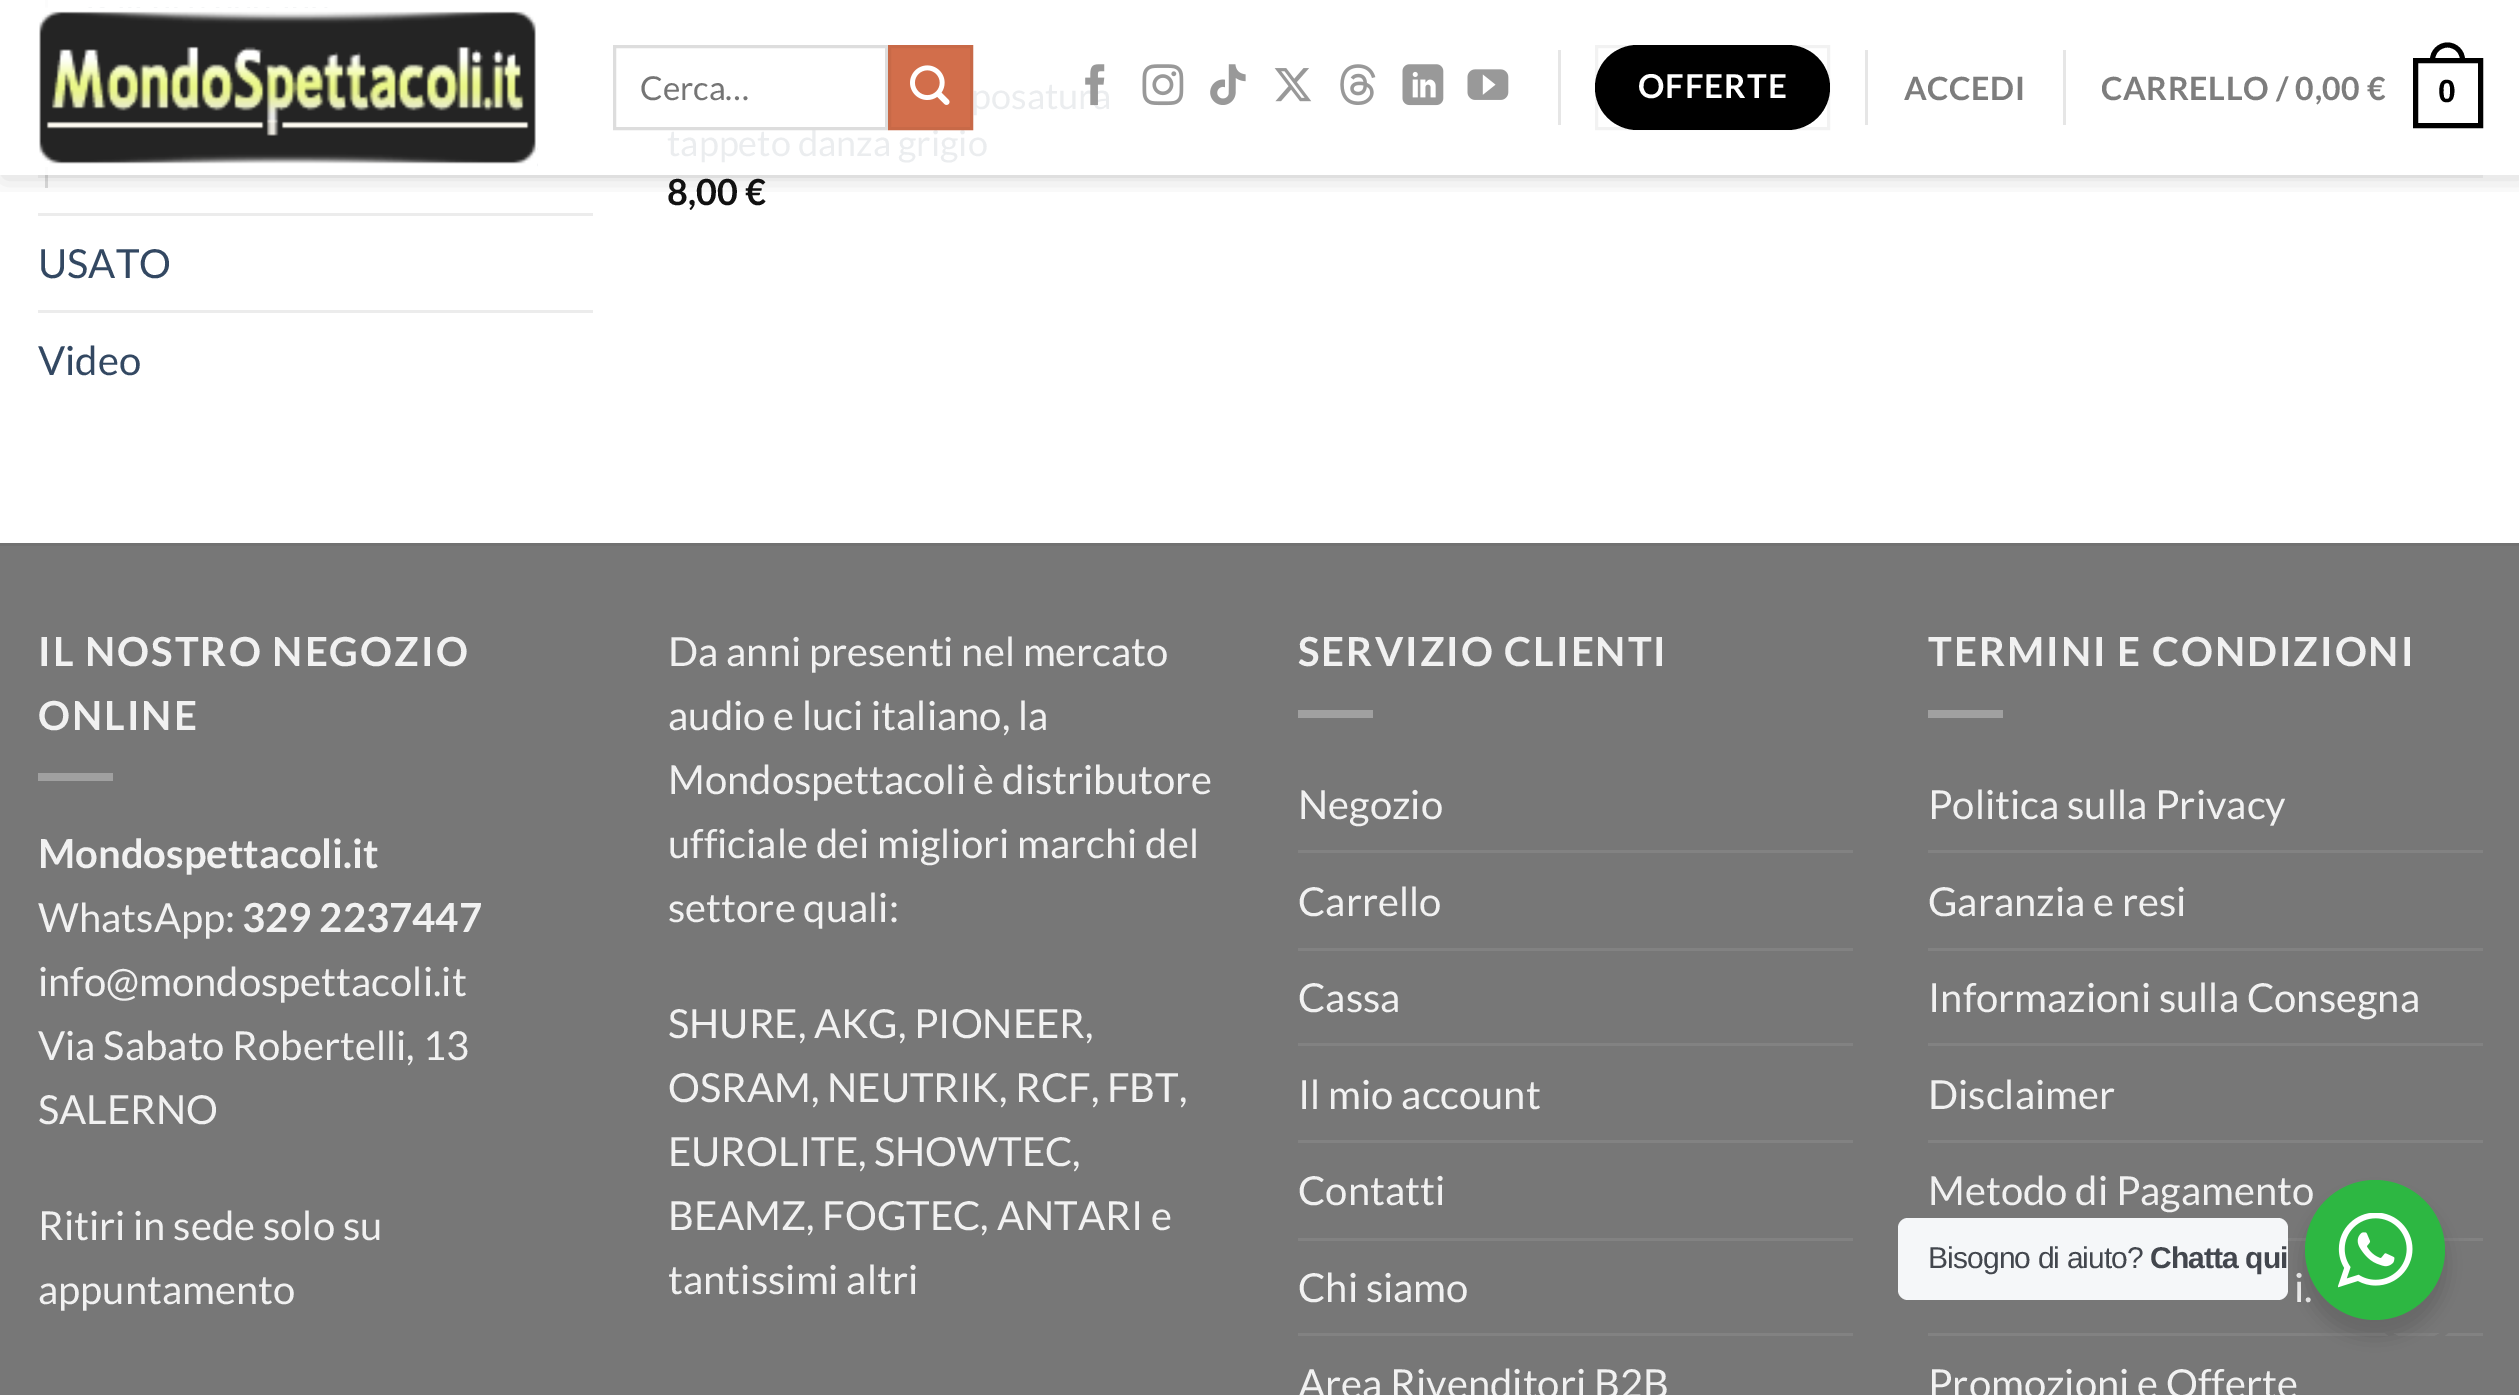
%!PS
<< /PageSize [2519 1395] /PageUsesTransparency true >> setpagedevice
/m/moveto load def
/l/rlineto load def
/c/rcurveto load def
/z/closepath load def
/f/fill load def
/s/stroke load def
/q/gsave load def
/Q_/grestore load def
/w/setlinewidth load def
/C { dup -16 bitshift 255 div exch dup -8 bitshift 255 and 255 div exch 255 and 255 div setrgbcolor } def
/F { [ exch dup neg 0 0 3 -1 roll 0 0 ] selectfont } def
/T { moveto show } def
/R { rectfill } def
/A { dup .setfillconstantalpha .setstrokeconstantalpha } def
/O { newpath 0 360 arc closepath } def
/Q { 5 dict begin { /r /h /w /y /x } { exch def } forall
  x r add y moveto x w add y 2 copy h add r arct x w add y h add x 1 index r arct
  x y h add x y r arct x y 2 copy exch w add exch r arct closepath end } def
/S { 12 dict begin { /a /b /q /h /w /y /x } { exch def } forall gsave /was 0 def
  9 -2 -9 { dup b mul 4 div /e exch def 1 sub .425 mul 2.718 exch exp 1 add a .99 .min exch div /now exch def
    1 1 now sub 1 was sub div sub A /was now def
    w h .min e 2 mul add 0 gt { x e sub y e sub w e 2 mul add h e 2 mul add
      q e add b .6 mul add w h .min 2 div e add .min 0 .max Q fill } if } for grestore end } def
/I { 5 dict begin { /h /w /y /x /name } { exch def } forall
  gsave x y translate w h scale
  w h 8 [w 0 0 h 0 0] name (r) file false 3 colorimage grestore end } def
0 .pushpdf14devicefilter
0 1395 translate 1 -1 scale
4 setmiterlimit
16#FFFFFF C
0 0 2519 1395 R
/Lato-Regular 36 F
16#EBEDEF C
(posatura) 971 109 T
(tappeto danza grigio) 667 156 T
/Lato-Bold 36 F
16#111111 C
(8,00 €) 667 205 T
16#DDDDDD C
45 175 3 13 R
16#FCFCFC C
45 0 3 175 R
16#ECECEC C
38 213 555 3 R
/Lato-Regular 40 F
16#334862 C
(USATO) 38 278 T
16#ECECEC C
38 310 555 3 R
16#334862 C
(Video) 38 375 T
q
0 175 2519 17 rectclip
16#000000 C
3 3 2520 175 0 12.5 .15 S
Q_
(1.rgb) 39 7 499 160 I
16#DDDDDD C
3 w
614.5 46.5 272 82 rectstroke
/Lato-Regular 33 F
16#757575 C
(Cerca…) 640 100 T
16#D26E4B C
889.5 46.5 m 82 0 l 0 82 l -82 0 l z q f Q_
16#C86947 C
s
(2.rgb) 910 65 40 40 I
(3.rgb) 1085 64 20 42 I
(4.rgb) 1142 64 42 42 I
(5.rgb) 1210 64 36 41 I
(6.rgb) 1274 68 38 34 I
(7.rgb) 1340 64 36 41 I
(8.rgb) 1402 64 42 42 I
(9.rgb) 1467 69 42 31 I
16#E6E6E6 C
1558 50 3 75 R
16#000000 C
1595 45 235 85 42.5 Q f
0.05 A
1596.5 46.5 232 82 rectstroke
/Lato-Bold 33 F
1 A
16#FFFFFF C
1638 98 m 1 0 (OFFERTE) ashow
16#E6E6E6 C
1865 50 3 75 R
/Lato-Bold 32 F
16#7D7D7D C
1904 100 m .6 0 (ACCEDI) ashow
16#E6E6E6 C
2063 50 3 75 R
16#7D7D7D C
2101 100 m .6 0 (CARRELLO / 0,00 €) ashow
16#000000 C
5 w
2415.5 60.5 65 65 rectstroke
2447.5 42.5 m 9.5 0 17.5 8 17.5 17.5 c 0 2.5 l -35 0 l 0 -2.5 l 0 -9.5 8 -17.5 17.5 -17.5 c z 2447.5 47.5 m 7 0 12.5 5.5 12.5 12.5 c 0 2.5 l -25 0 l 0 -2.5 l 0 -7 5.5 -12.5 12.5 -12.5 c z eofill
/LiberationSans-Bold 32 F
2438 102 m .6 0 (0) ashow
0.1 A
16#777777 C
38 175 2445 3 R
1 A
0 546 2519 849 R
16#717171 C
0 543 2519 3 R
/Lato-Bold 40 F
16#F1F1F1 C
38 666 m 2 0 (IL NOSTRO NEGOZIO) ashow
38 730 m 2 0 (ONLINE) ashow
16#A0A0A0 C
38 773 75 8 R
16#F1F1F1 C
(Mondospettacoli.it) 38 868 T
/Lato-Regular 40 F
(WhatsApp:) 38 932 T
/Lato-Bold 40 F
(329 2237447) 242 932 T
/Lato-Regular 40 F
(info@mondospettacoli.it) 38 996 T
(Via Sabato Robertelli, 13) 38 1060 T
(SALERNO) 38 1124 T
(Ritiri in sede solo su) 38 1240 T
(appuntamento) 38 1304 T
(Da anni presenti nel mercato) 668 666 T
(audio e luci italiano, la) 668 730 T
(Mondospettacoli è distributore) 668 794 T
(ufficiale dei migliori marchi del) 668 858 T
(settore quali:) 668 922 T
(SHURE, AKG, PIONEER,) 668 1038 T
(OSRAM, NEUTRIK, RCF, FBT,) 668 1102 T
(EUROLITE, SHOWTEC,) 668 1166 T
(BEAMZ, FOGTEC, ANTARI e) 668 1230 T
(tantissimi altri) 668 1294 T
/Lato-Bold 40 F
1298 666 m 2 0 (SERVIZIO CLIENTI) ashow
16#A0A0A0 C
1298 710 75 8 R
/Lato-Regular 40 F
16#F1F1F1 C
(Negozio) 1298 819 T
16#828282 C
1298 850 555 3 R
16#F1F1F1 C
(Carrello) 1298 916 T
16#828282 C
1298 948 555 3 R
16#F1F1F1 C
(Cassa) 1298 1012 T
16#828282 C
1298 1043 555 3 R
16#F1F1F1 C
(Il mio account) 1298 1109 T
16#828282 C
1298 1140 555 3 R
16#F1F1F1 C
(Contatti) 1298 1205 T
16#828282 C
1298 1238 555 3 R
16#F1F1F1 C
(Chi siamo) 1298 1302 T
16#828282 C
1298 1333 555 3 R
16#F1F1F1 C
(Area Rivenditori B2B) 1298 1398 T
/Lato-Bold 40 F
1928 666 m 2 0 (TERMINI E CONDIZIONI) ashow
16#A0A0A0 C
1928 710 75 8 R
/Lato-Regular 40 F
16#F1F1F1 C
(Politica sulla Privacy) 1928 819 T
16#828282 C
1928 850 555 3 R
16#F1F1F1 C
(Garanzia e resi) 1928 916 T
16#828282 C
1928 948 555 3 R
16#F1F1F1 C
(Informazioni sulla Consegna) 1928 1012 T
16#828282 C
1928 1043 555 3 R
16#F1F1F1 C
(Disclaimer) 1928 1109 T
16#828282 C
1928 1140 555 3 R
16#F1F1F1 C
(Metodo di Pagamento) 1928 1205 T
16#828282 C
2288 1238 195 3 R
16#F1F1F1 C
(i.) 2294 1302 T
16#828282 C
1928 1333 555 3 R
16#F1F1F1 C
(Promozioni e Offerte) 1928 1398 T
16#777777 C
2416.5 1296.5 46 O s
16#000000 C
2300 1190 150 150 75 10 .14 S
16#F5F7F9 C
1898 1218 390 82 10 Q f
/LiberationSans-Regular 30 F
16#43474E C
1928 1268 m -.9 0 (Bisogno di aiuto?) ashow
/LiberationSans-Bold 30 F
2150 1268 m -.9 0 (Chatta qui) ashow
16#2DB742 C
2375 1250 70 O f
(10.rgb) 2338 1213 75 75 I
.poppdf14devicefilter showpage
